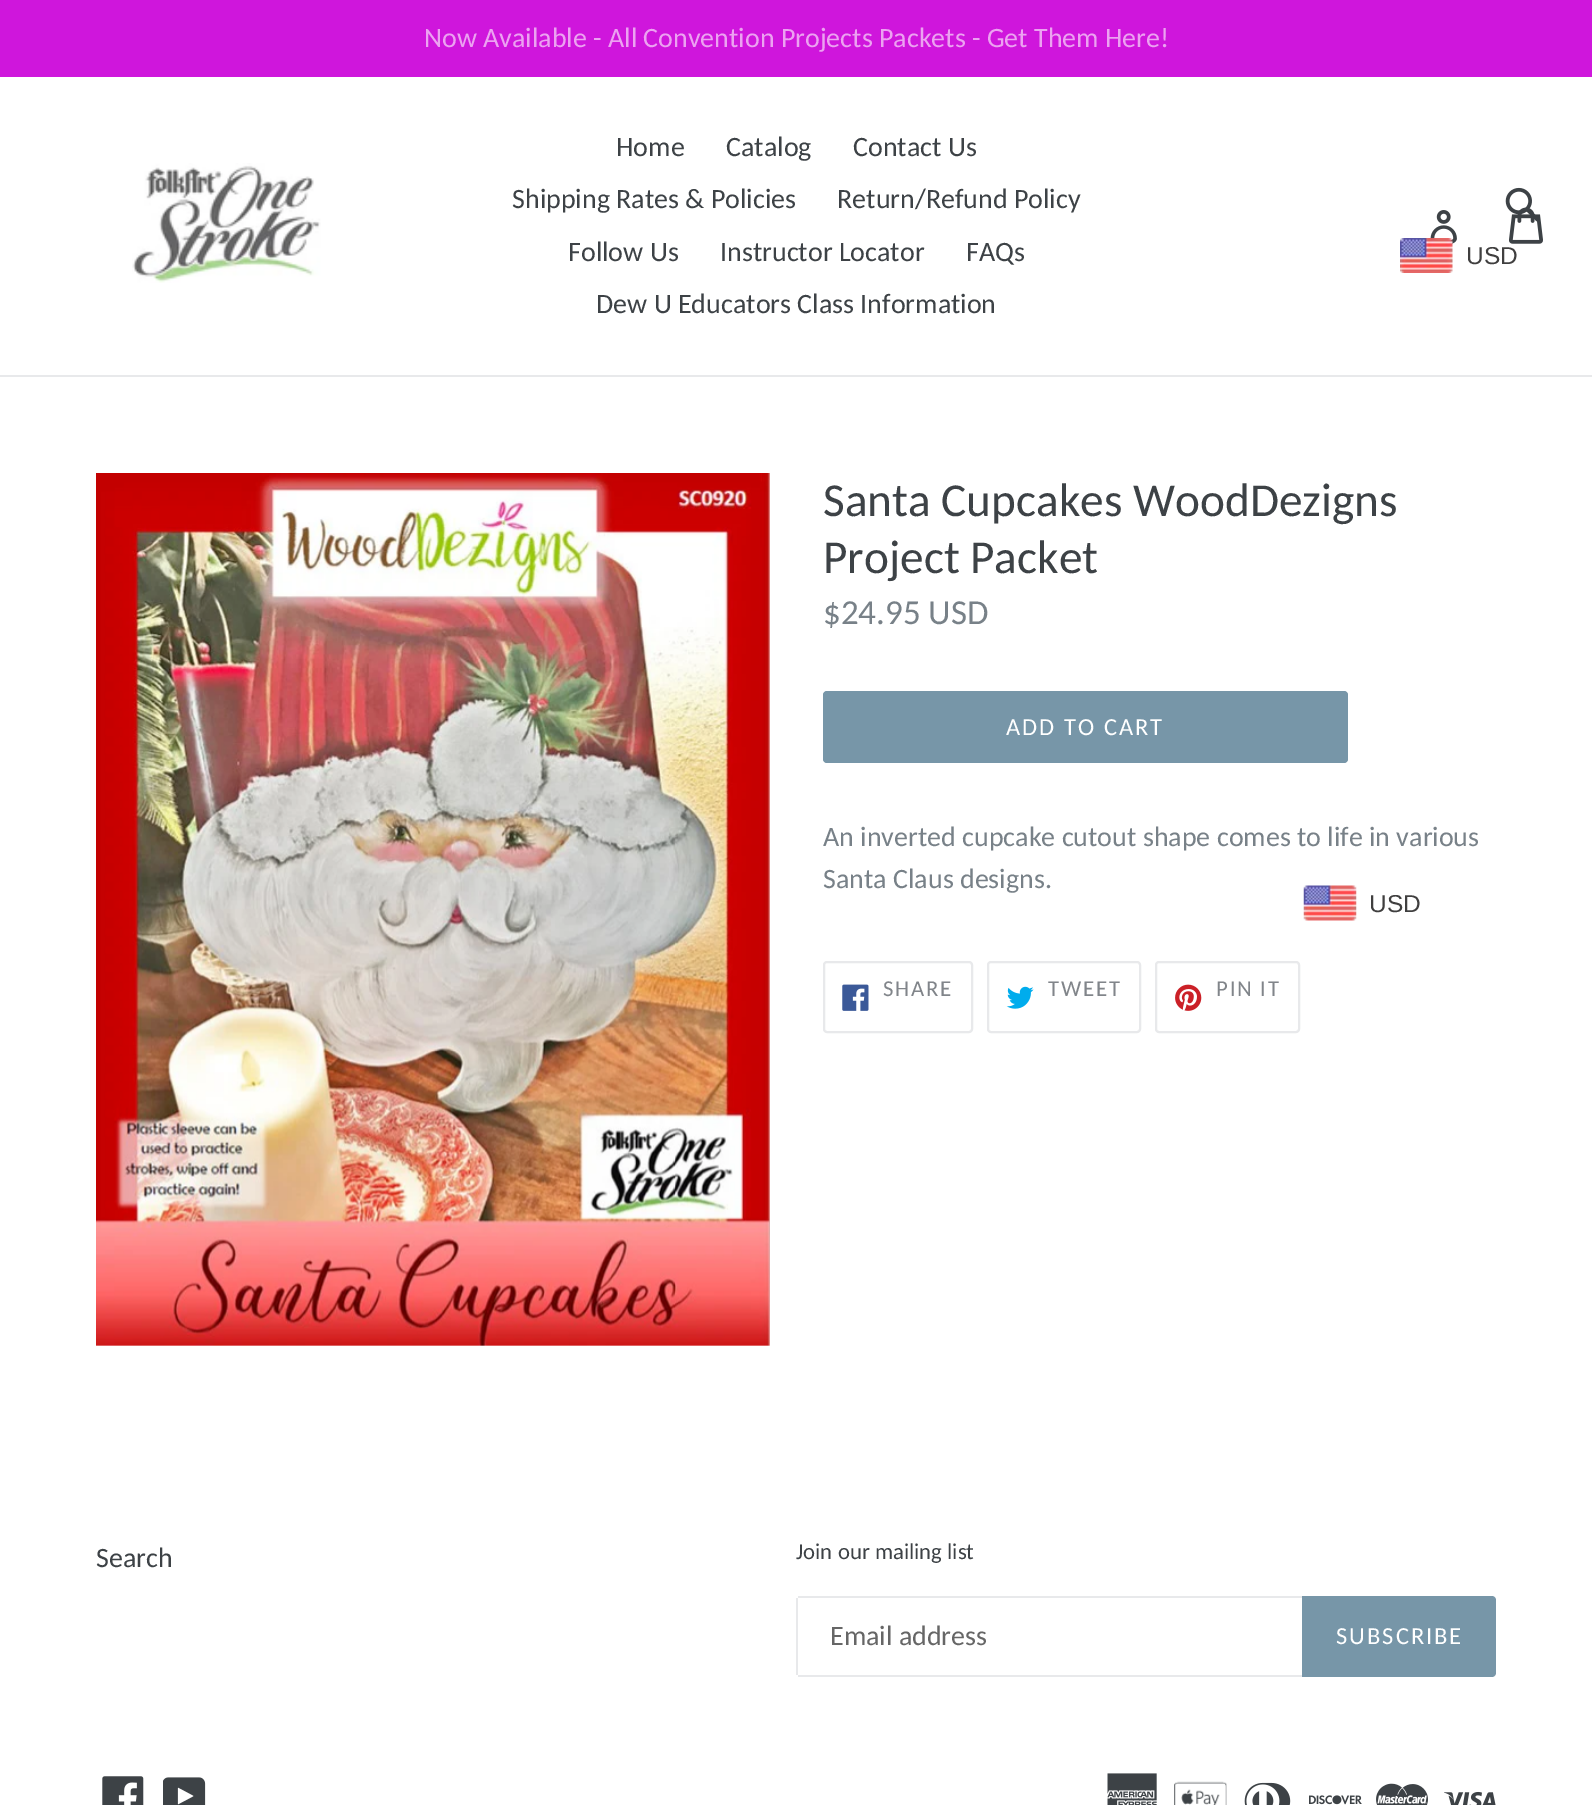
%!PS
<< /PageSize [1592 1805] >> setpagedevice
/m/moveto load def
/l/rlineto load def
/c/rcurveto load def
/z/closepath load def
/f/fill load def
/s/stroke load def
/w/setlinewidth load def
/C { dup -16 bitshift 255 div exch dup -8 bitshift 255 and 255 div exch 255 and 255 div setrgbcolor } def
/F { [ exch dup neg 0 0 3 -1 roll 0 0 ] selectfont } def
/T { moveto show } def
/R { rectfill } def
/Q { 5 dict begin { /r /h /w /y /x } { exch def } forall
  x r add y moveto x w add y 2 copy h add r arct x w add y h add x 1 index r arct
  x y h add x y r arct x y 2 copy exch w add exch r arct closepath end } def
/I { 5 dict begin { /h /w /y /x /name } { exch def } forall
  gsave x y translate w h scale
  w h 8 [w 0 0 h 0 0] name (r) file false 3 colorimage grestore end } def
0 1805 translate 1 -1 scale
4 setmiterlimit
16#FFFFFF C
0 0 1592 1805 R
16#CF16DC C
0 0 1592 77 R
/Carlito-Regular 28 F
16#ECA2F1 C
(Now Available - All Convention Projects Packets - Get Them Here!) 424 47 T
16#E8E9EB C
0 375 1592 2 R
(1.rgb) 132 163 189 120 I
16#3D4246 C
(Home) 616 156 T
(Catalog) 726 156 T
(Contact Us) 853 156 T
(Shipping Rates & Policies) 512 208 T
(Return/Refund Policy) 837 208 T
(Follow Us) 568 261 T
(Instructor Locator) 720 261 T
(FAQs) 966 261 T
(Dew U Educators Class Information) 596 313 T
(4.rgb) 1509 207 34 37 I
(2.rgb) 1505 187 32 35 I
(3.rgb) 1430 210 27 35 I
(5.rgb) 1400 238 53 35 I
/LiberationSans-Regular 24.5 F
16#403F3F C
(USD) 1466 264 T
(6.rgb) 96 473 674 873 I
/Carlito-Regular 47.25 F
16#3D4246 C
(Santa Cupcakes WoodDezigns) 823 516 T
(Project Packet) 823 573 T
/Carlito-Regular 35 F
16#788188 C
($24.95 USD) 823 624 T
16#7796A8 C
823 691 525 72 4 Q f
/Carlito-Regular 24.5 F
16#FFFFFF C
1006 735 m 2 0 (ADD TO CART) ashow
/Carlito-Regular 28 F
16#788188 C
(An inverted cupcake cutout shape comes to life in various) 823 846 T
(Santa Claus designs.) 823 888 T
16#E8E9EB C
2 w
824 962 148 70 3 Q s
(7.rgb) 842 984 27 27 I
/Carlito-Regular 22.75 F
16#81858A C
883 996 m 1.75 0 (SHARE) ashow
16#E8E9EB C
988 962 152 70 3 Q s
(8.rgb) 1006 986 28 23 I
16#81858A C
1048 996 m 1.75 0 (TWEET) ashow
16#E8E9EB C
1156 962 143 70 3 Q s
(9.rgb) 1175 984 27 27 I
16#81858A C
1216 996 m 1.75 0 (PIN IT) ashow
/Carlito-Regular 28 F
16#3D4246 C
(Search) 96 1567 T
/Carlito-Regular 22.75 F
(Join our mailing list) 796 1559 T
16#E8E9EB C
798 1596 504 2 R
798 1675 504 2 R
796 1598 2 77 R
/Carlito-Regular 28 F
16#666666 C
(Email address) 830 1645 T
16#7796A8 C
1302 1596 m 190 0 l 2 0 4 2 4 4 c 0 73 l 0 2 -2 4 -4 4 c -190 0 l z f
/Carlito-Regular 24.5 F
16#FFFFFF C
1336 1644 m 2 0 (SUBSCRIBE) ashow
(10.rgb) 102 1776 42 29 I
(11.rgb) 163 1777 43 28 I
(12.rgb) 1107 1773 50 32 I
(13.rgb) 1174 1781 53 24 I
(14.rgb) 1244 1782 47 23 I
(15.rgb) 1309 1795 53 10 I
(16.rgb) 1376 1783 52 22 I
(17.rgb) 1444 1791 52 14 I
(18.rgb) 1303 885 54 36 I
/LiberationSans-Regular 24.5 F
16#403F3F C
(USD) 1369 912 T
showpage
